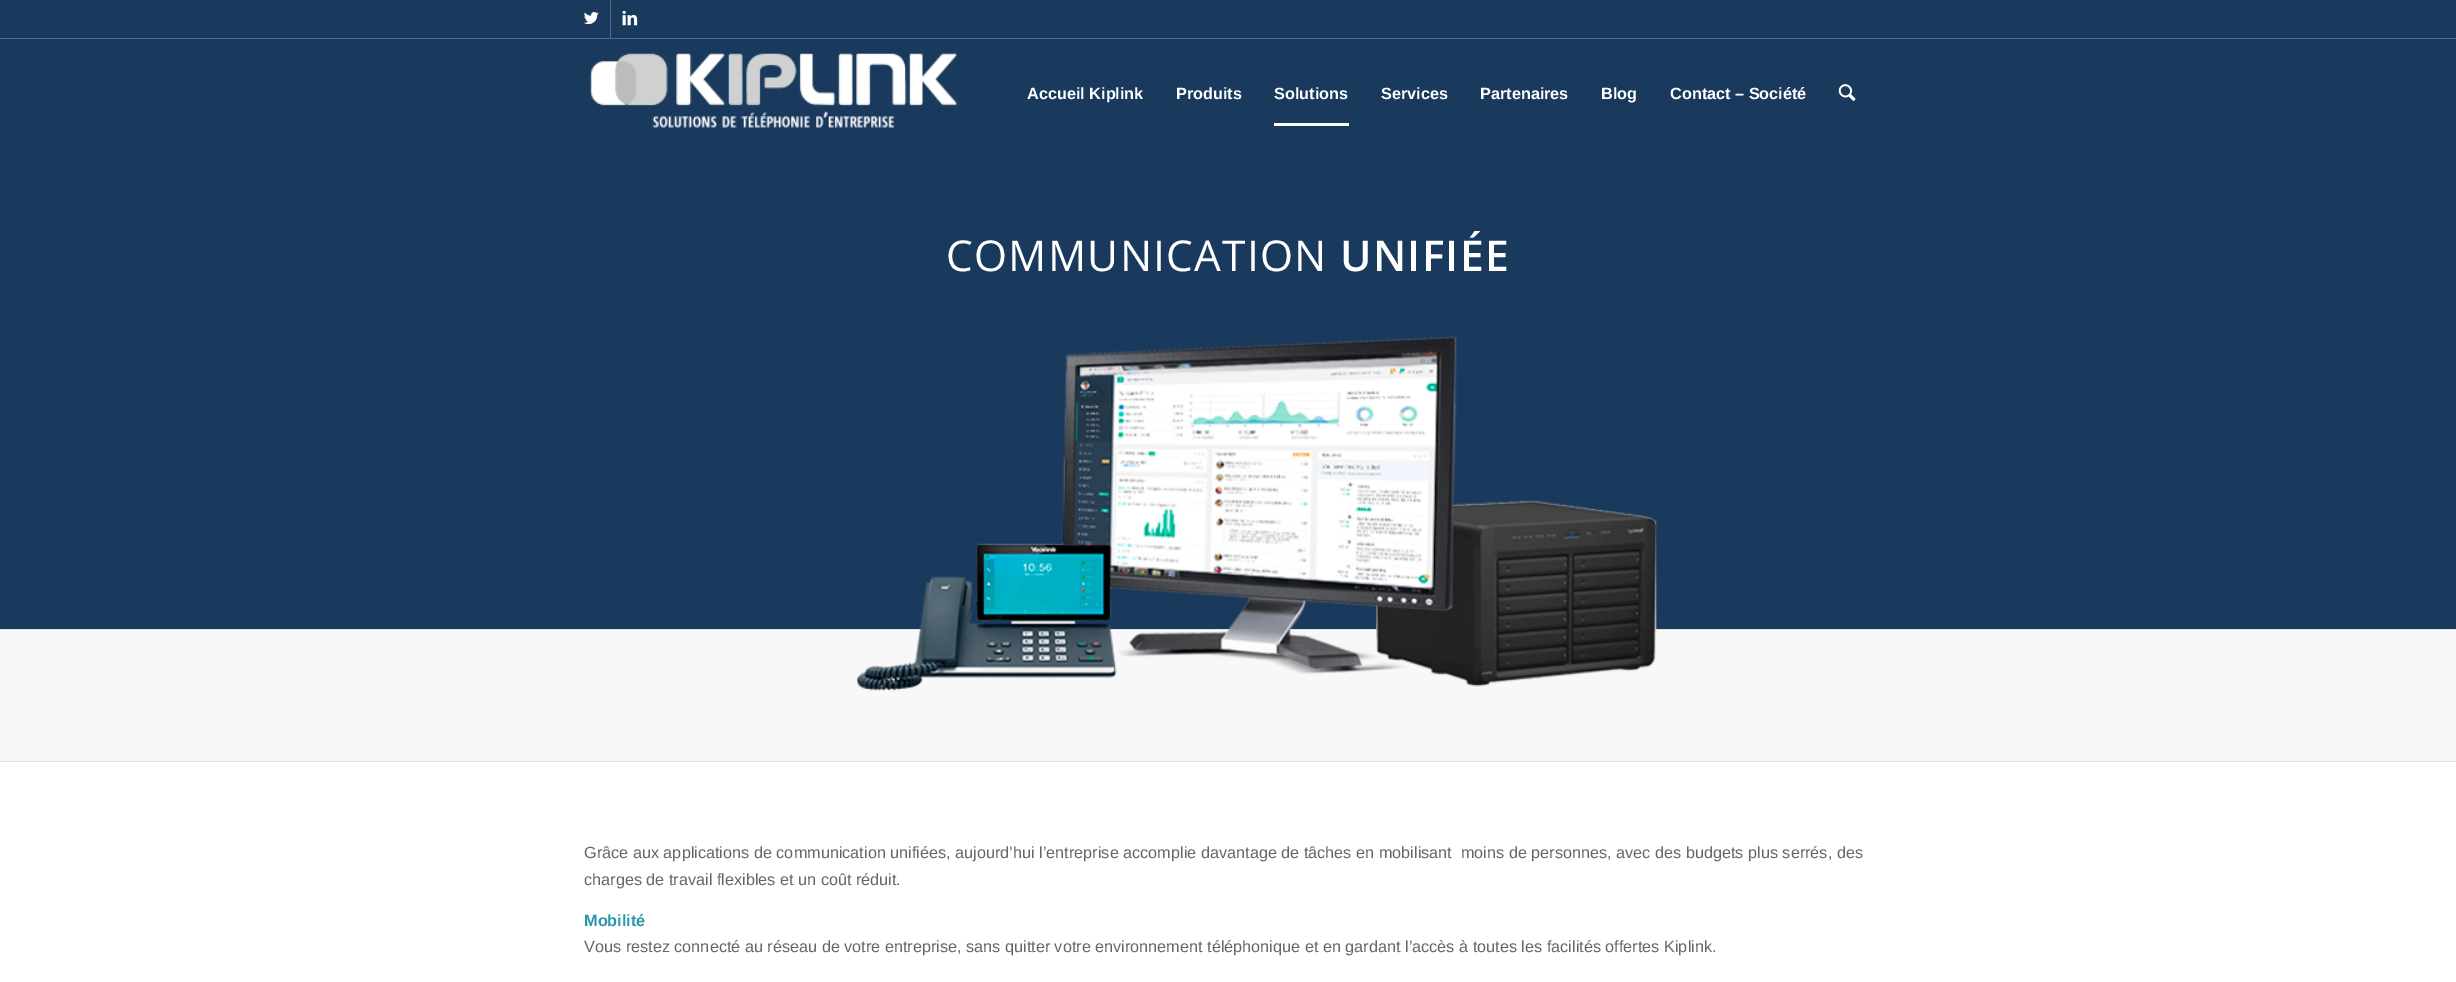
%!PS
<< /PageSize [2456 982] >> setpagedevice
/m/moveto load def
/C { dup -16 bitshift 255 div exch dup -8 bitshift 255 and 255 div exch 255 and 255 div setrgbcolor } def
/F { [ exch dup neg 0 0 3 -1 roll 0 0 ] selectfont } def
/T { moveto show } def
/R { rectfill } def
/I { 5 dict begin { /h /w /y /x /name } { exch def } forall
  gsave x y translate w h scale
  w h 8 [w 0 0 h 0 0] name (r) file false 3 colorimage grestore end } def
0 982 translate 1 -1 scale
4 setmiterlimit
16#FFFFFF C
0 0 2456 982 R
16#1A3A5D C
0 0 2456 629 R
16#536B86 C
0 38 2456 1 R
610 0 1 38 R
(1.rgb) 584 12 15 13 I
(2.rgb) 622 10 16 16 I
(3.rgb) 590 53 367 75 I
/LiberationSans-Bold 16.25 F
16#FFFFFF C
(Accueil Kiplink) 1027 99 T
(Produits) 1176 99 T
(Solutions) 1274 99 T
1274 123 75 3 R
(Services) 1381 99 T
(Partenaires) 1480 99 T
(Blog) 1601 99 T
(Contact – Société) 1670 99 T
(4.rgb) 1838 84 18 17 I
/OpenSans-Regular 42.5 F
946 271 m 1.25 0 (COMMUNICATION) ashow
/OpenSans-SemiBold 42.5 F
1340 271 m 1.25 0 (UNIFIÉE) ashow
16#F8F8F8 C
0 630 2456 131 R
16#E1E1E1 C
0 629 2456 1 R
(5.rgb) 856 336 801 355 I
0 761 2456 1 R
/LiberationSans-Regular 16.25 F
16#666666 C
(Grâce aux applications de communication unifiées, aujourd’hui l’entreprise accomplie davantage de tâches en mobilisant  moins de personnes, avec des budgets plus serrés, des) 584 858 T
(charges de travail flexibles et un coût réduit.) 584 885 T
/LiberationSans-Bold 16.25 F
16#2997AB C
(Mobilité) 584 926 T
/LiberationSans-Regular 16.25 F
16#666666 C
(Vous restez connecté au réseau de votre entreprise, sans quitter votre environnement téléphonique et en gardant l’accès à toutes les facilités offertes Kiplink.) 584 952 T
showpage
